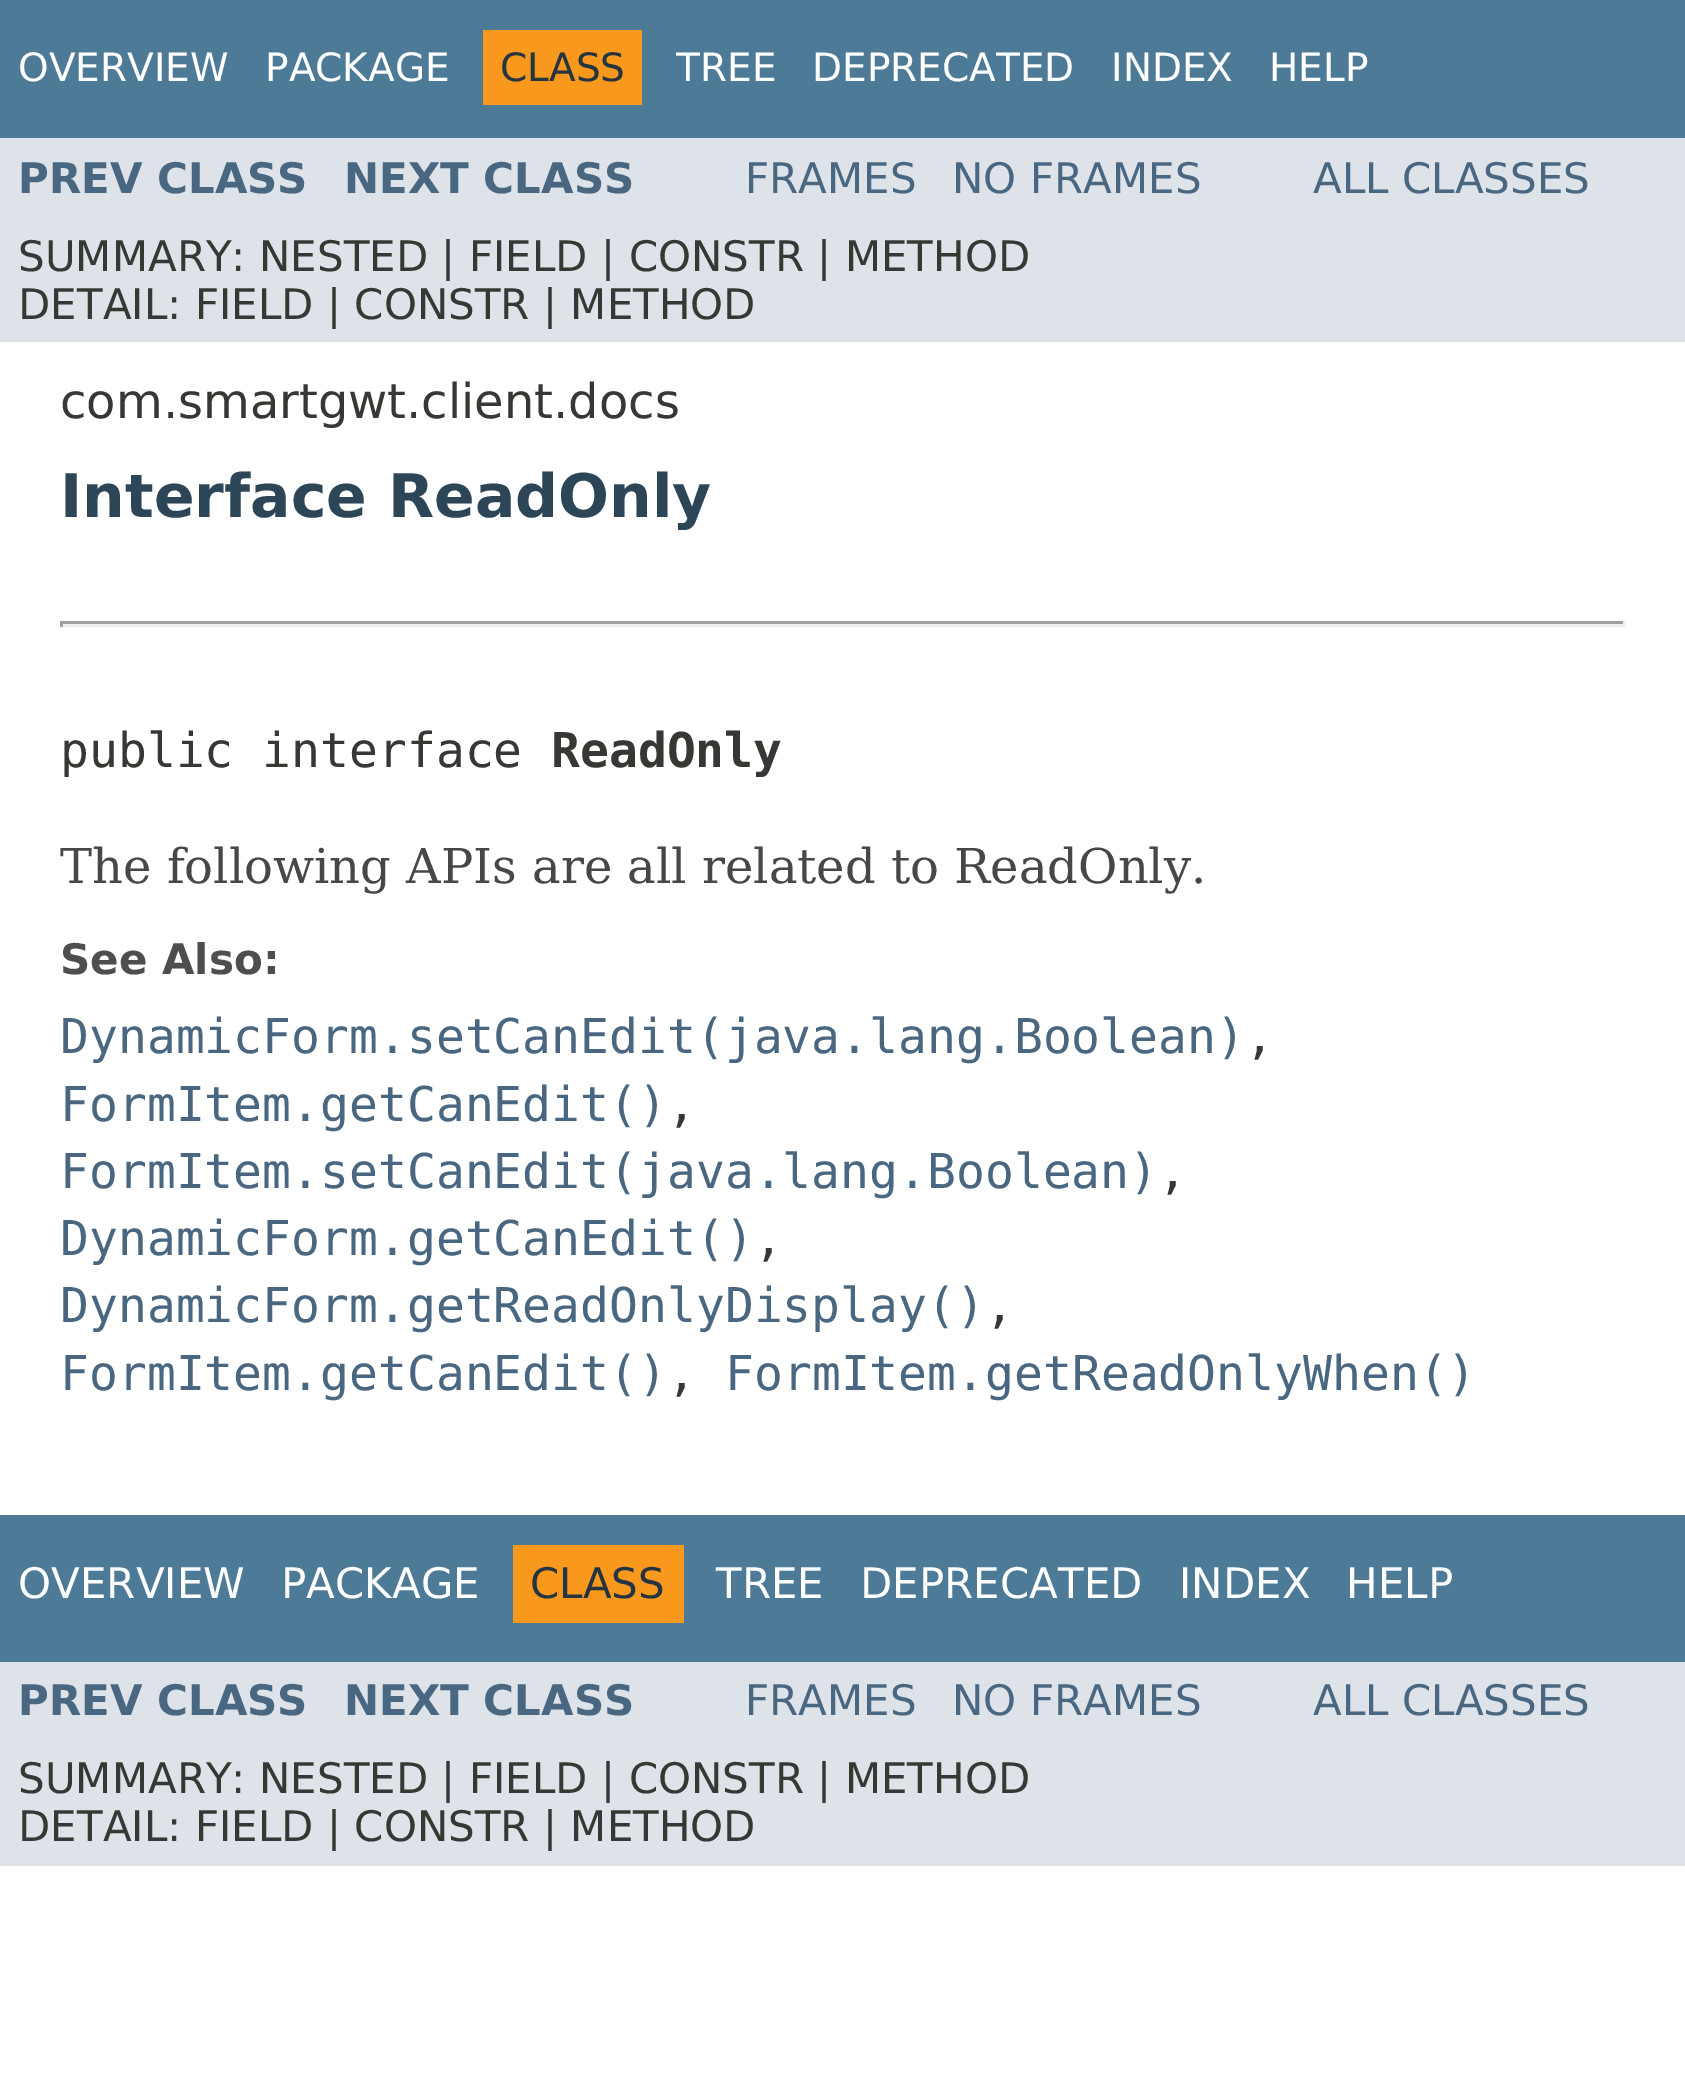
%!PS
<< /PageSize [1685 2099] >> setpagedevice
/C { dup -16 bitshift 255 div exch dup -8 bitshift 255 and 255 div exch 255 and 255 div setrgbcolor } def
/F { [ exch dup neg 0 0 3 -1 roll 0 0 ] selectfont } def
/T { moveto show } def
/R { rectfill } def
0 2099 translate 1 -1 scale
4 setmiterlimit
16#FFFFFF C
0 0 1685 2099 R
16#4D7A97 C
0 0 1685 138 R
/DejaVuSans-Regular 39 F
16#FFFFFF C
(OVERVIEW) 18 81 T
(PACKAGE) 265 81 T
16#F8981D C
483 30 159 75 R
16#253441 C
(CLASS) 500 81 T
16#FFFFFF C
(TREE) 676 81 T
(DEPRECATED) 812 81 T
(INDEX) 1111 81 T
(HELP) 1269 81 T
16#DEE3E9 C
0 138 1685 204 R
/DejaVuSans-Bold 42 F
16#4A6782 C
(PREV CLASS) 18 193 T
(NEXT CLASS) 344 193 T
/DejaVuSans-Regular 42 F
(FRAMES) 745 193 T
(NO FRAMES) 952 193 T
(ALL CLASSES) 1313 193 T
16#353833 C
(SUMMARY: NESTED | FIELD | CONSTR | METHOD) 18 271 T
(DETAIL: FIELD | CONSTR | METHOD) 18 319 T
/DejaVuSans-Regular 48 F
(com.smartgwt.client.docs) 60 418 T
/DejaVuSans-Bold 60 F
16#2C4557 C
(Interface ReadOnly) 60 517 T
16#9F9F9F C
60 621 1566 3 R
16#EEEEEE C
1623 621 3 6 R
60 624 1566 3 R
16#9F9F9F C
60 621 3 6 R
/DejaVuSansMono-Regular 48 F
16#353833 C
(public interface) 60 767 T
/DejaVuSansMono-Bold 48 F
(ReadOnly) 551 767 T
/DejaVuSerif-Regular 48 F
16#474747 C
(The following APIs are all related to ReadOnly.) 60 883 T
/DejaVuSans-Bold 42 F
16#4E4E4E C
(See Also:) 60 974 T
/DejaVuSansMono-Regular 48 F
16#4A6782 C
(DynamicForm.setCanEdit\(java.lang.Boolean\)) 60 1053 T
16#353833 C
(,) 1245 1053 T
16#4A6782 C
(FormItem.getCanEdit\(\)) 60 1121 T
16#353833 C
(,) 667 1121 T
16#4A6782 C
(FormItem.setCanEdit\(java.lang.Boolean\)) 60 1188 T
16#353833 C
(,) 1158 1188 T
16#4A6782 C
(DynamicForm.getCanEdit\(\)) 60 1255 T
16#353833 C
(,) 754 1255 T
16#4A6782 C
(DynamicForm.getReadOnlyDisplay\(\)) 60 1322 T
16#353833 C
(,) 985 1322 T
16#4A6782 C
(FormItem.getCanEdit\(\)) 60 1390 T
16#353833 C
(,) 667 1390 T
16#4A6782 C
(FormItem.getReadOnlyWhen\(\)) 725 1390 T
16#4D7A97 C
0 1515 1685 147 R
/DejaVuSans-Regular 42 F
16#FFFFFF C
(OVERVIEW) 18 1598 T
(PACKAGE) 281 1598 T
16#F8981D C
513 1545 171 78 R
16#253441 C
(CLASS) 530 1598 T
16#FFFFFF C
(TREE) 716 1598 T
(DEPRECATED) 860 1598 T
(INDEX) 1179 1598 T
(HELP) 1346 1598 T
16#DEE3E9 C
0 1662 1685 204 R
/DejaVuSans-Bold 42 F
16#4A6782 C
(PREV CLASS) 18 1715 T
(NEXT CLASS) 344 1715 T
/DejaVuSans-Regular 42 F
(FRAMES) 745 1715 T
(NO FRAMES) 952 1715 T
(ALL CLASSES) 1313 1715 T
16#353833 C
(SUMMARY: NESTED | FIELD | CONSTR | METHOD) 18 1793 T
(DETAIL: FIELD | CONSTR | METHOD) 18 1841 T
showpage
